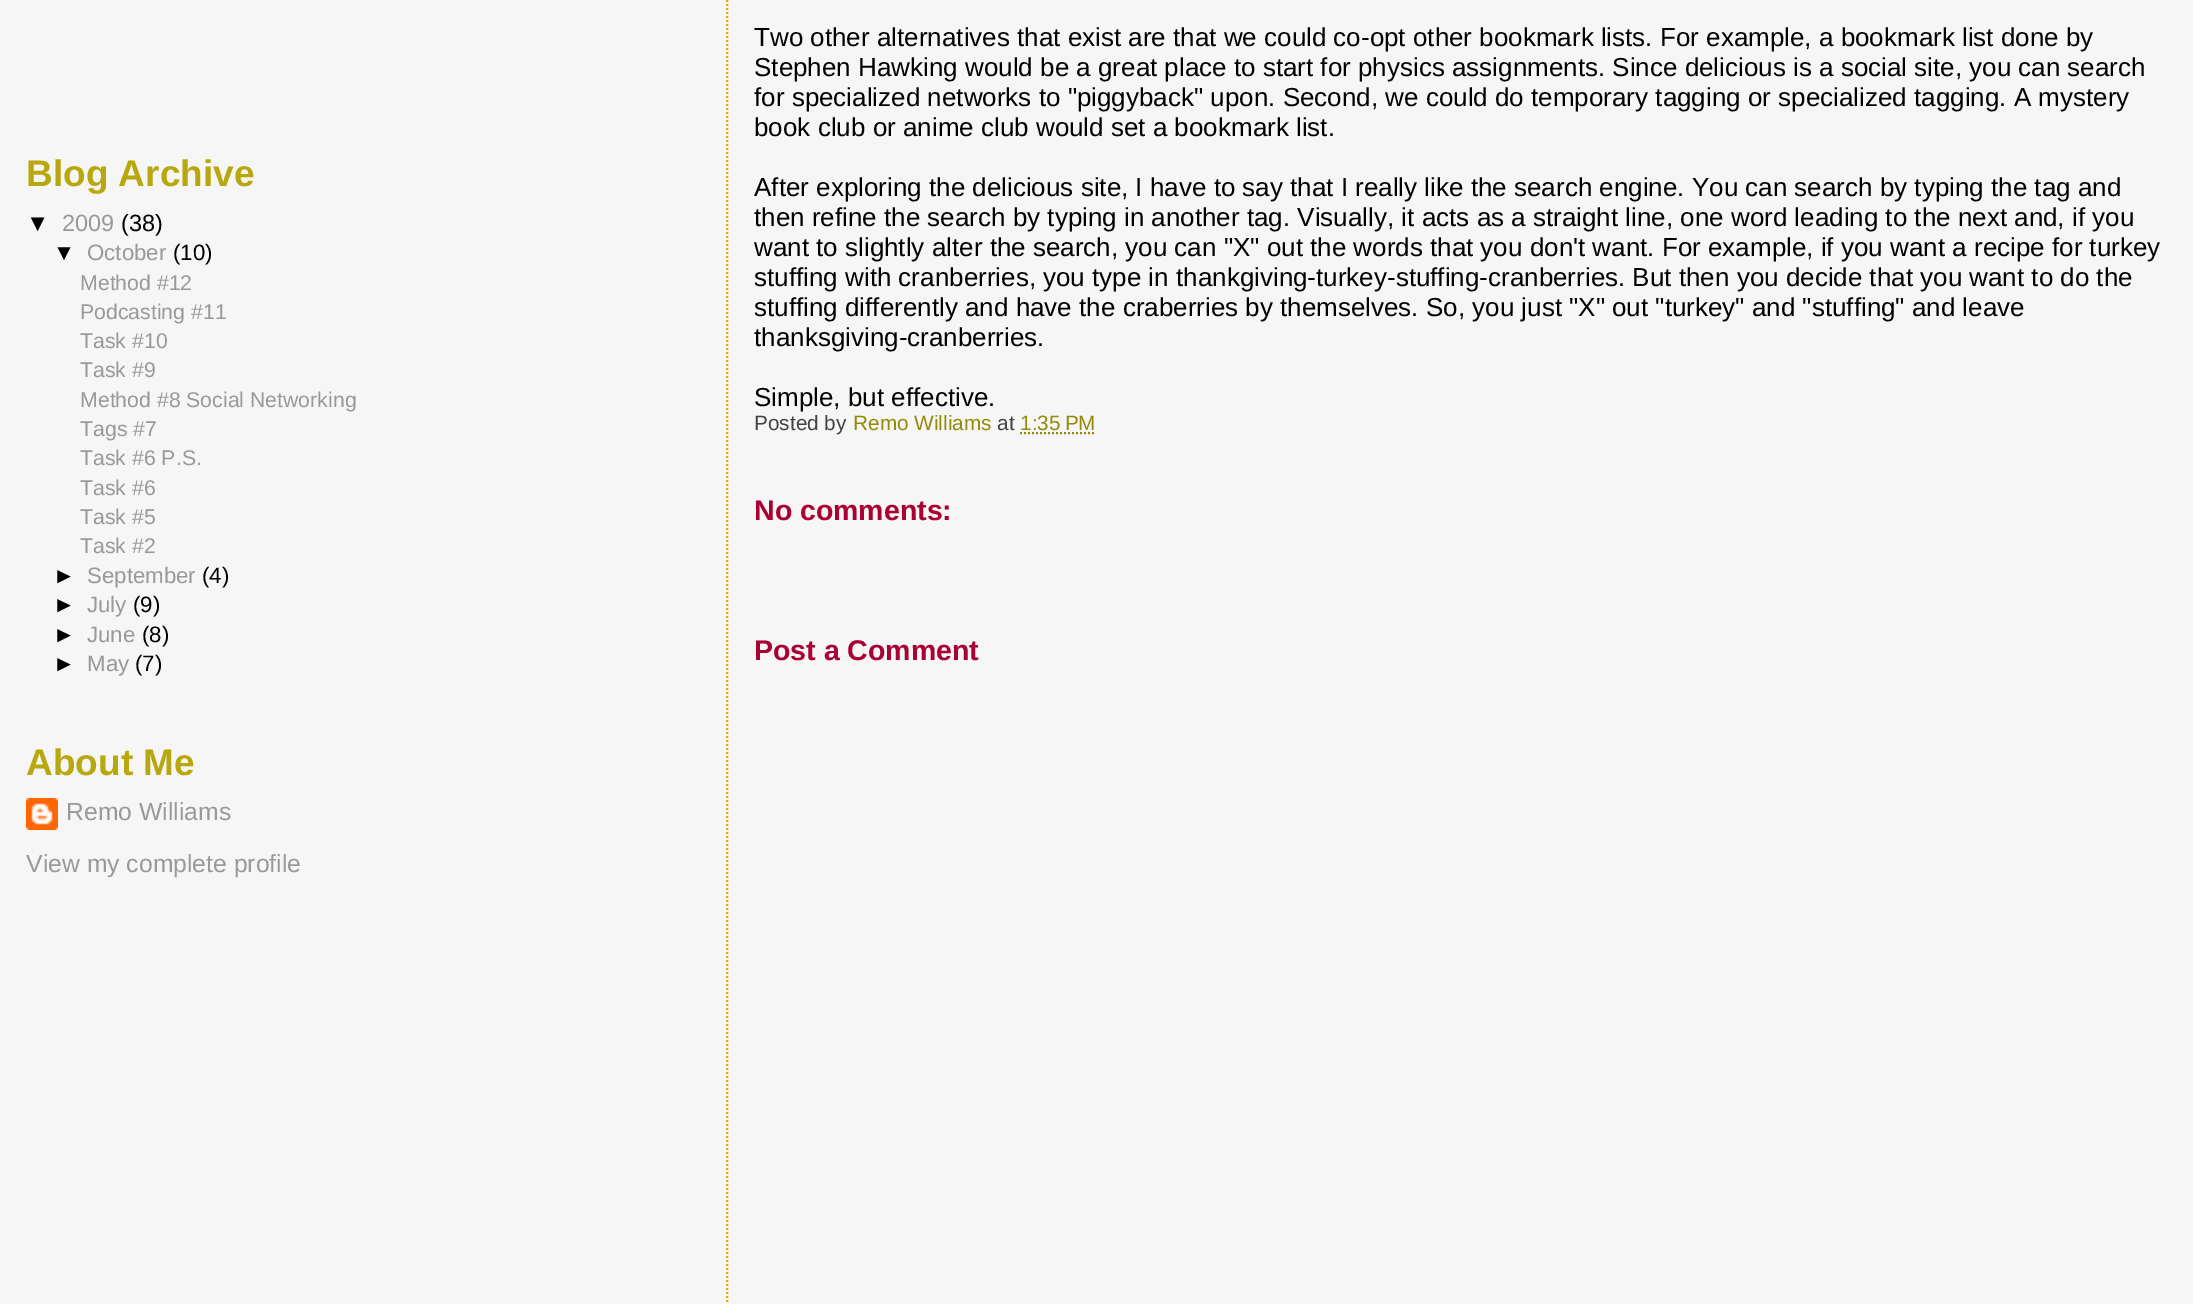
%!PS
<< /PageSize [2193 1304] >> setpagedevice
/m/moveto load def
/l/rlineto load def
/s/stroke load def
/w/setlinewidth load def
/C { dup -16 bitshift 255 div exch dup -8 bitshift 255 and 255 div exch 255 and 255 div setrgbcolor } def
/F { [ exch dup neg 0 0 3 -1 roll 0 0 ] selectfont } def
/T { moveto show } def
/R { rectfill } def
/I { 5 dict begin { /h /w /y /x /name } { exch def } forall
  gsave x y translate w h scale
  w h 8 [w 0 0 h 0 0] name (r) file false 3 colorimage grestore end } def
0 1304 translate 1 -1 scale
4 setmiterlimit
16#F6F6F6 C
0 0 2193 1304 R
/LiberationSans-Bold 37 F
16#B8A80D C
(Blog Archive) 26 186 T
/LiberationSans-Regular 23.5 F
16#000000 C
(▼) 26 231 T
16#999999 C
(2009) 62 231 T
16#000000 C
(\(38\)) 121 231 T
/LiberationSans-Regular 22.25 F
(▼) 53 260 T
16#999999 C
(October) 87 260 T
16#000000 C
(\(10\)) 173 260 T
/LiberationSans-Regular 21.25 F
16#999999 C
(Method #12) 80 290 T
(Podcasting #11) 80 319 T
(Task #10) 80 348 T
(Task #9) 80 377 T
(Method #8 Social Networking) 80 407 T
(Tags #7) 80 436 T
(Task #6 P.S.) 80 465 T
(Task #6) 80 495 T
(Task #5) 80 524 T
(Task #2) 80 553 T
/LiberationSans-Regular 22.25 F
16#000000 C
(►) 53 583 T
16#999999 C
(September) 87 583 T
16#000000 C
(\(4\)) 202 583 T
(►) 53 612 T
16#999999 C
(July) 87 612 T
16#000000 C
(\(9\)) 133 612 T
(►) 53 642 T
16#999999 C
(June) 87 642 T
16#000000 C
(\(8\)) 142 642 T
(►) 53 671 T
16#999999 C
(May) 87 671 T
16#000000 C
(\(7\)) 135 671 T
/LiberationSans-Bold 37 F
16#B8A80D C
(About Me) 26 775 T
(1.rgb) 26 798 32 32 I
/LiberationSans-Regular 24.75 F
16#999999 C
(Remo Williams) 66 820 T
(View my complete profile) 26 872 T
16#E0AD12 C
2 w
[2 2] 0 setdash
727 -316 m 0 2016 l s
/LiberationSans-Regular 26 F
16#000000 C
(Two other alternatives that exist are that we could co-opt other bookmark lists. For example, a bookmark list done by) 754 46 T
(Stephen Hawking would be a great place to start for physics assignments. Since delicious is a social site, you can search) 754 76 T
(for specialized networks to "piggyback" upon. Second, we could do temporary tagging or specialized tagging. A mystery) 754 106 T
(book club or anime club would set a bookmark list.) 754 136 T
(After exploring the delicious site, I have to say that I really like the search engine. You can search by typing the tag and) 754 196 T
(then refine the search by typing in another tag. Visually, it acts as a straight line, one word leading to the next and, if you) 754 226 T
(want to slightly alter the search, you can "X" out the words that you don't want. For example, if you want a recipe for turkey) 754 256 T
(stuffing with cranberries, you type in thankgiving-turkey-stuffing-cranberries. But then you decide that you want to do the) 754 286 T
(stuffing differently and have the craberries by themselves. So, you just "X" out "turkey" and "stuffing" and leave) 754 316 T
(thanksgiving-cranberries.) 754 346 T
(Simple, but effective.) 754 406 T
/LiberationSans-Regular 20.75 F
16#444444 C
(Posted by) 754 430 T
16#968A0A C
(Remo Williams) 853 430 T
16#444444 C
(at) 997 430 T
16#968A0A C
(1:35 PM) 1020 430 T
1020 433 m 76 0 l s
/LiberationSans-Bold 28.5 F
16#AA0033 C
(No comments:) 754 520 T
(Post a Comment) 754 660 T
showpage
